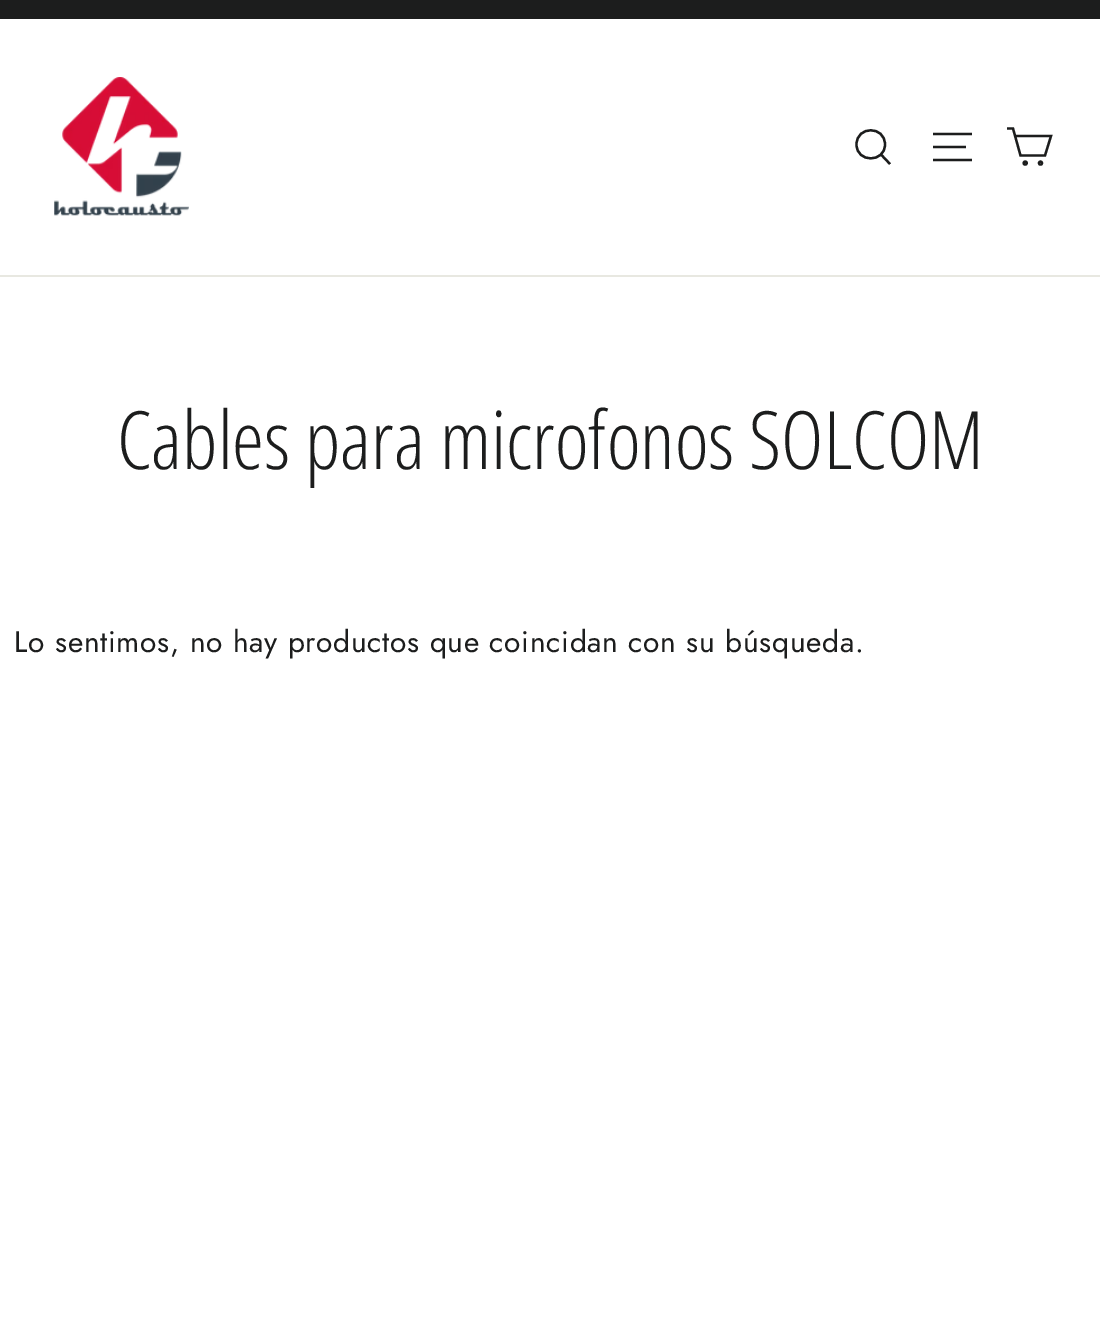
%!PS
<< /PageSize [1100 1335] >> setpagedevice
/m/moveto load def
/l/rlineto load def
/c/rcurveto load def
/z/closepath load def
/s/stroke load def
/w/setlinewidth load def
/C { dup -16 bitshift 255 div exch dup -8 bitshift 255 and 255 div exch 255 and 255 div setrgbcolor } def
/F { [ exch dup neg 0 0 3 -1 roll 0 0 ] selectfont } def
/T { moveto show } def
/R { rectfill } def
/O { newpath 0 360 arc closepath } def
/I { 5 dict begin { /h /w /y /x /name } { exch def } forall
  gsave x y translate w h scale
  w h 8 [w 0 0 h 0 0] name (r) file false 3 colorimage grestore end } def
0 1335 translate 1 -1 scale
4 setmiterlimit
16#FFFFFF C
0 0 1100 1335 R
16#1C1D1D C
0 0 1100 19 R
16#E8E8E1 C
0 275 1100 2 R
(1.rgb) 54 77 135 139 I
16#1C1D1D C
2.3 w
885 144.5 m 0 18.5 -28.5 18.5 -28.5 0 c 0 -19 28.5 -19 28.5 0 c z 890 164 m -9 -9.5 l s
933 134 m 39 0 l 933 147 m 33 0 l 933 160 m 39 0 l s
1015 136 m 36 0 l -6 19.5 l -24.5 0 l -7.5 -27 l -6 0 l s
1025.2 163.1 1.5 O s
1040.5 163.1 1.5 O s
/OpenSansCondensed-Light 80.5 F
(Cables para microfonos SOLCOM) 117 469 T
/Jost-Regular 29.75 F
14 652 m .75 0 (Lo sentimos, no hay productos que coincidan con su búsqueda.) ashow
showpage
